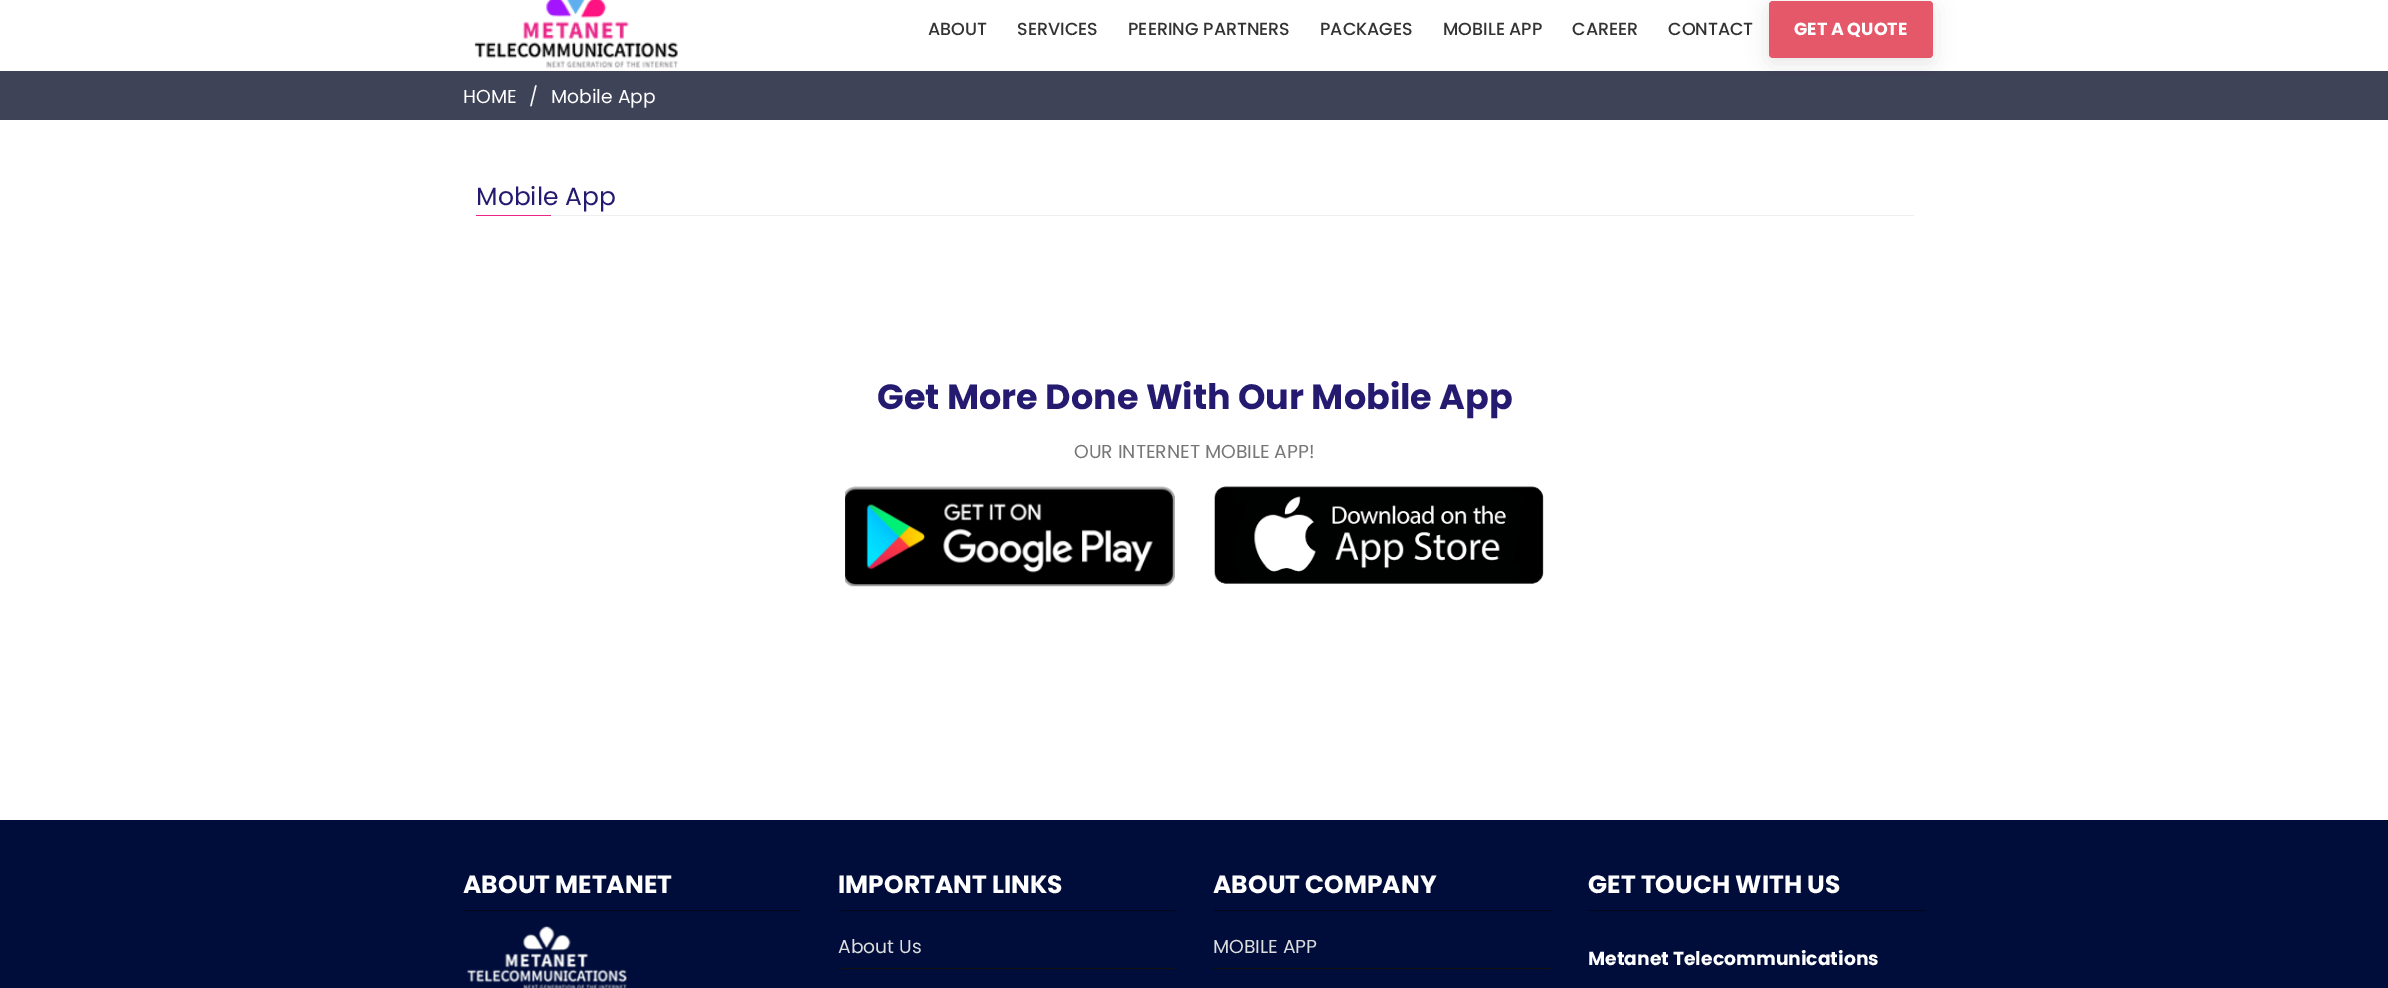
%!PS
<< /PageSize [2388 988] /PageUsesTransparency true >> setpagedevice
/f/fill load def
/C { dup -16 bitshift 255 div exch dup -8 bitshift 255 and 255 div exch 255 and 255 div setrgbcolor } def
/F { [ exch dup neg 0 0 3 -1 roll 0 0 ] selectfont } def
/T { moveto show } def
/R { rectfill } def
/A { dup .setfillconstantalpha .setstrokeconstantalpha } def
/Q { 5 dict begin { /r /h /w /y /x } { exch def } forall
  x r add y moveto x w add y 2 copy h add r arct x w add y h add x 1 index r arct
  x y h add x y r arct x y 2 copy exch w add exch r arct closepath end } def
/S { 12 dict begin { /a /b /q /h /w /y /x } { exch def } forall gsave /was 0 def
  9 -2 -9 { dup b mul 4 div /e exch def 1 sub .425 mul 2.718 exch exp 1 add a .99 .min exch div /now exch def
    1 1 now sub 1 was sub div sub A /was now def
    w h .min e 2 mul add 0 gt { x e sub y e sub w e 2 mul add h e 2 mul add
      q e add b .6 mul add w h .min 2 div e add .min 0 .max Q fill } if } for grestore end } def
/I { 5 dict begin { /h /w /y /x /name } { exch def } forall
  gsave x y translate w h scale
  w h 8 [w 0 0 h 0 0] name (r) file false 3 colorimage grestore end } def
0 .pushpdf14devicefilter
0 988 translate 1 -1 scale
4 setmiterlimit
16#FFFFFF C
0 0 2388 988 R
(1.rgb) 474 0 204 68 I
/Poppins-Medium 17.5 F
16#333333 C
(ABOUT) 928 35 T
(SERVICES) 1017 35 T
(PEERING PARTNERS) 1128 35 T
(PACKAGES) 1320 35 T
(MOBILE APP) 1443 35 T
(CAREER) 1572 35 T
(CONTACT) 1668 35 T
16#3F4357 C
0 71 2388 49 R
16#000000 C
1769 6 164 57 4 10.5 .1 S
16#E5586A C
1769 1 164 57 4 Q f
/Poppins-Bold 17.5 F
16#FFFFFF C
(GET A QUOTE) 1794 35 T
/Poppins-Regular 18.75 F
(HOME) 463 103 T
(/) 529 103 T
(Mobile App) 551 103 T
/Poppins-Regular 25 F
16#241A6F C
(Mobile App) 476 205 T
16#EEEEEE C
551 215 1363 1 R
16#E92788 C
476 215 75 1 R
/Poppins-Bold 35 F
16#241A6F C
(Get More Done With Our Mobile App) 877 409 T
/Poppins-Regular 18.75 F
16#777777 C
(OUR INTERNET MOBILE APP!) 1074 458 T
(2.rgb) 845 486 330 101 I
(3.rgb) 1214 486 330 98 I
16#000D3A C
0 820 2388 168 R
16#000517 C
464 910 337 1 R
/Poppins-Bold 25 F
16#FFFFFF C
(ABOUT METANET) 463 893 T
(4.rgb) 467 926 160 62 I
16#000517 C
839 910 337 1 R
16#FFFFFF C
(IMPORTANT LINKS) 838 893 T
16#111111 C
839 968 337 1 R
/Poppins-Regular 18.75 F
16#DDDDDD C
(About Us) 838 953 T
16#000517 C
1214 910 337 1 R
/Poppins-Bold 25 F
16#FFFFFF C
(ABOUT COMPANY) 1213 893 T
16#111111 C
1214 968 337 1 R
/Poppins-Regular 18.75 F
16#DDDDDD C
(MOBILE APP) 1213 953 T
16#000517 C
1589 910 337 1 R
/Poppins-Bold 25 F
16#FFFFFF C
(GET TOUCH WITH US) 1588 893 T
/Poppins-Bold 18.75 F
(Metanet Telecommunications) 1588 965 T
.poppdf14devicefilter showpage
